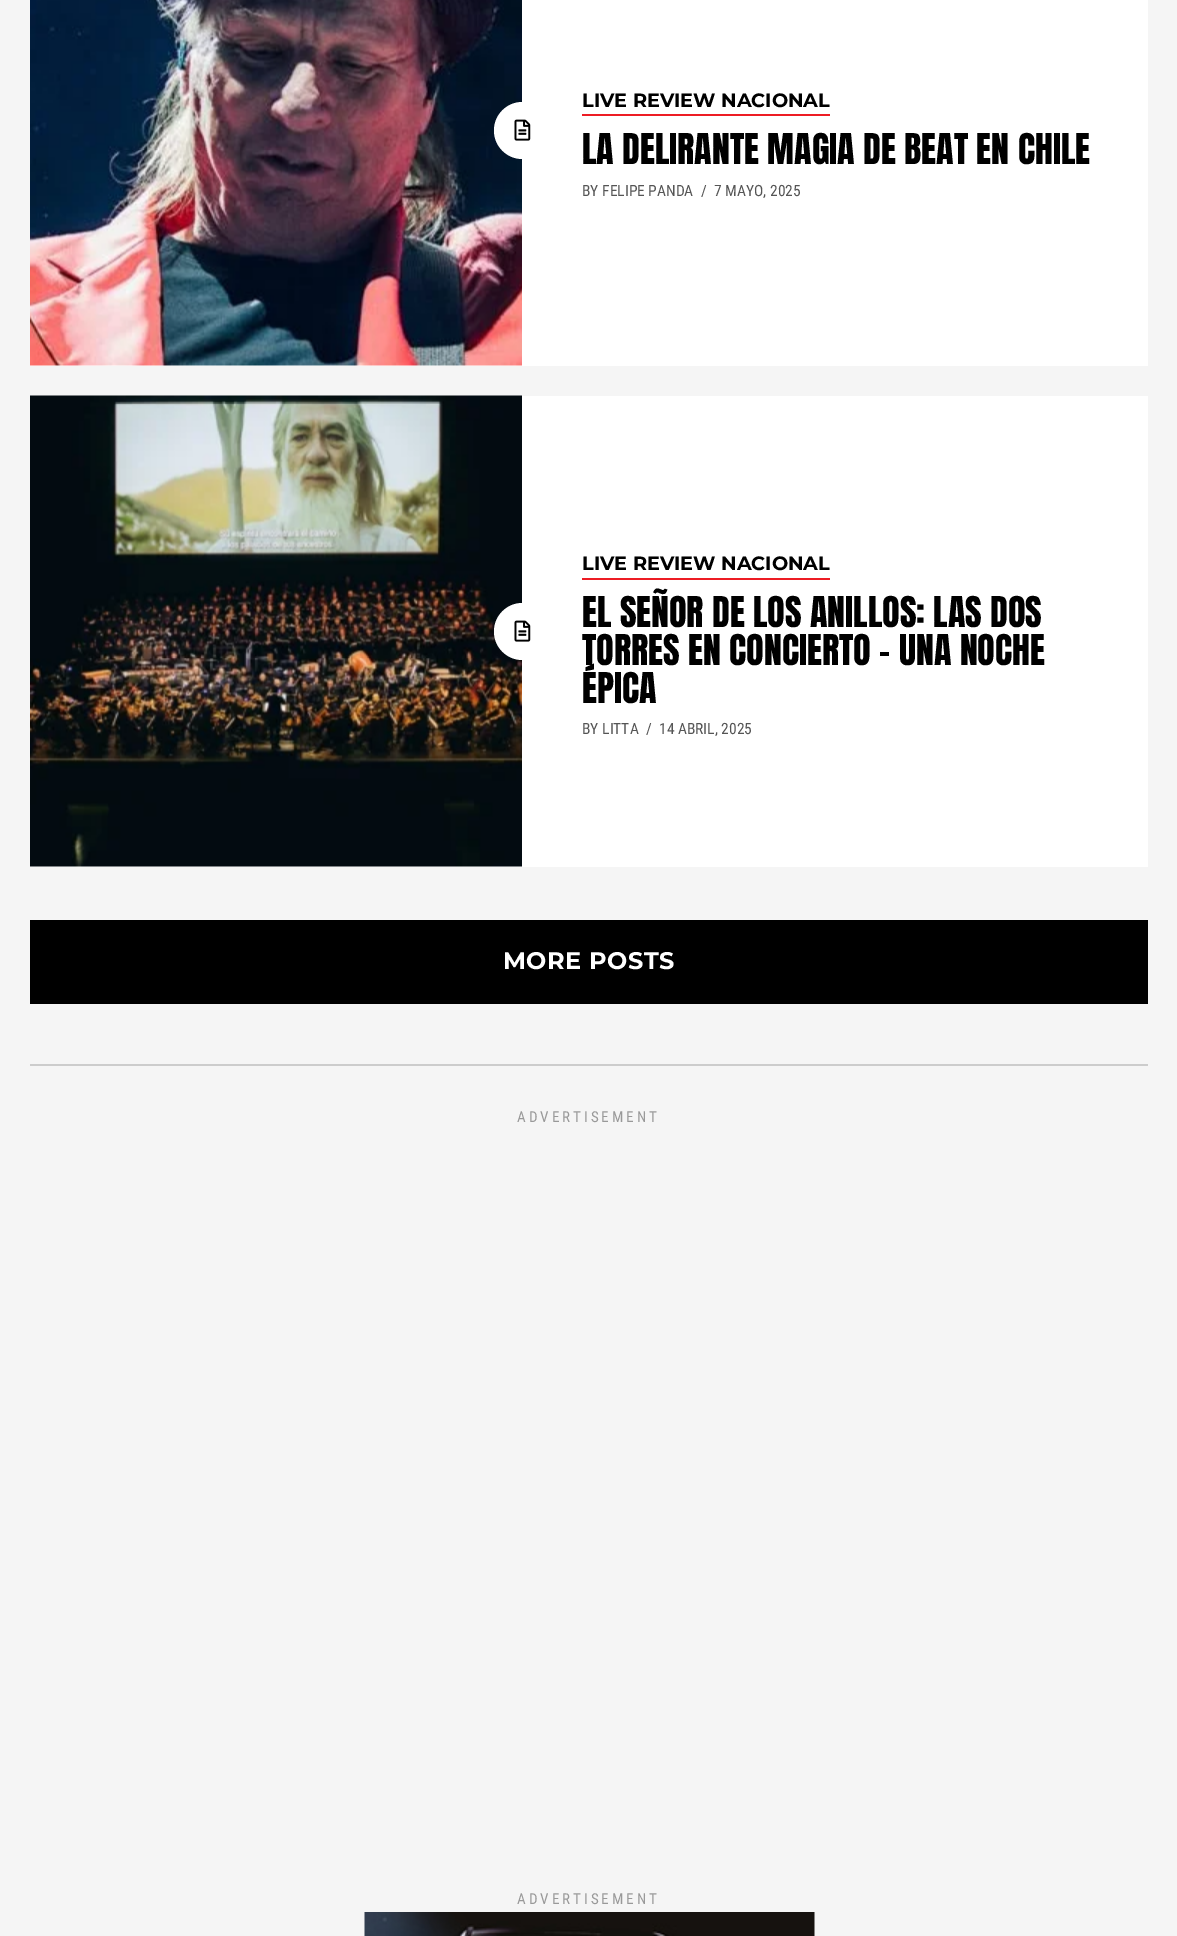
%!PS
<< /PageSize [1177 1936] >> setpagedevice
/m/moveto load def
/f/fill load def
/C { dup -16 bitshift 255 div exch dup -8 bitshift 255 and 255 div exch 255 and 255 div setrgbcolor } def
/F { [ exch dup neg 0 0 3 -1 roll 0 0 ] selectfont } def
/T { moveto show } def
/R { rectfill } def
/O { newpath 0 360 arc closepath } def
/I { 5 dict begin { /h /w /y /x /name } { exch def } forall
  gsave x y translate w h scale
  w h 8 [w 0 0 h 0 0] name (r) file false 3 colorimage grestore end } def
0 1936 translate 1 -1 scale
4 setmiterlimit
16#F5F5F5 C
0 0 1177 1936 R
16#FFFFFF C
30 0 1118 366 R
(1.rgb) 30 0 492 366 I
16#ED1C24 C
582 114 248 2 R
/Montserrat-Bold 19.25 F
16#000000 C
(LIVE REVIEW NACIONAL) 582 107 T
16#FFFFFF C
522.5 130.5 28.5 O f
(2.rgb) 514 119 17 22 I
/Anton-Regular 36 F
16#000000 C
(LA DELIRANTE MAGIA DE BEAT EN CHILE) 582 164 T
/RobotoCondensed-Regular 15.5 F
16#555555 C
(BY FELIPE PANDA) 582 196 T
(/) 701 196 T
(7 MAYO, 2025) 714 196 T
16#FFFFFF C
30 396 1118 471 R
(3.rgb) 30 395 492 472 I
16#ED1C24 C
582 578 248 2 R
/Montserrat-Bold 19.25 F
16#000000 C
(LIVE REVIEW NACIONAL) 582 570 T
16#FFFFFF C
522.5 631.5 28.5 O f
(2.rgb) 514 620 17 22 I
/Anton-Regular 36 F
16#000000 C
(EL SEÑOR DE LOS ANILLOS: LAS DOS) 582 627 T
(TORRES EN CONCIERTO – UNA NOCHE) 582 665 T
(ÉPICA) 582 703 T
/RobotoCondensed-Regular 15.5 F
16#555555 C
(BY LITTA) 582 734 T
(/) 646 734 T
(14 ABRIL, 2025) 659 734 T
16#000000 C
30 920 1118 84 R
/Montserrat-Bold 24 F
16#FFFFFF C
503 969 m .5 0 (MORE POSTS) ashow
16#CCCCCC C
30 1064 1118 2 R
/RobotoCondensed-Regular 15 F
16#999999 C
517 1122 m 3 0 (ADVERTISEMENT) ashow
517 1904 m 3 0 (ADVERTISEMENT) ashow
(4.rgb) 364 1912 451 24 I
showpage
